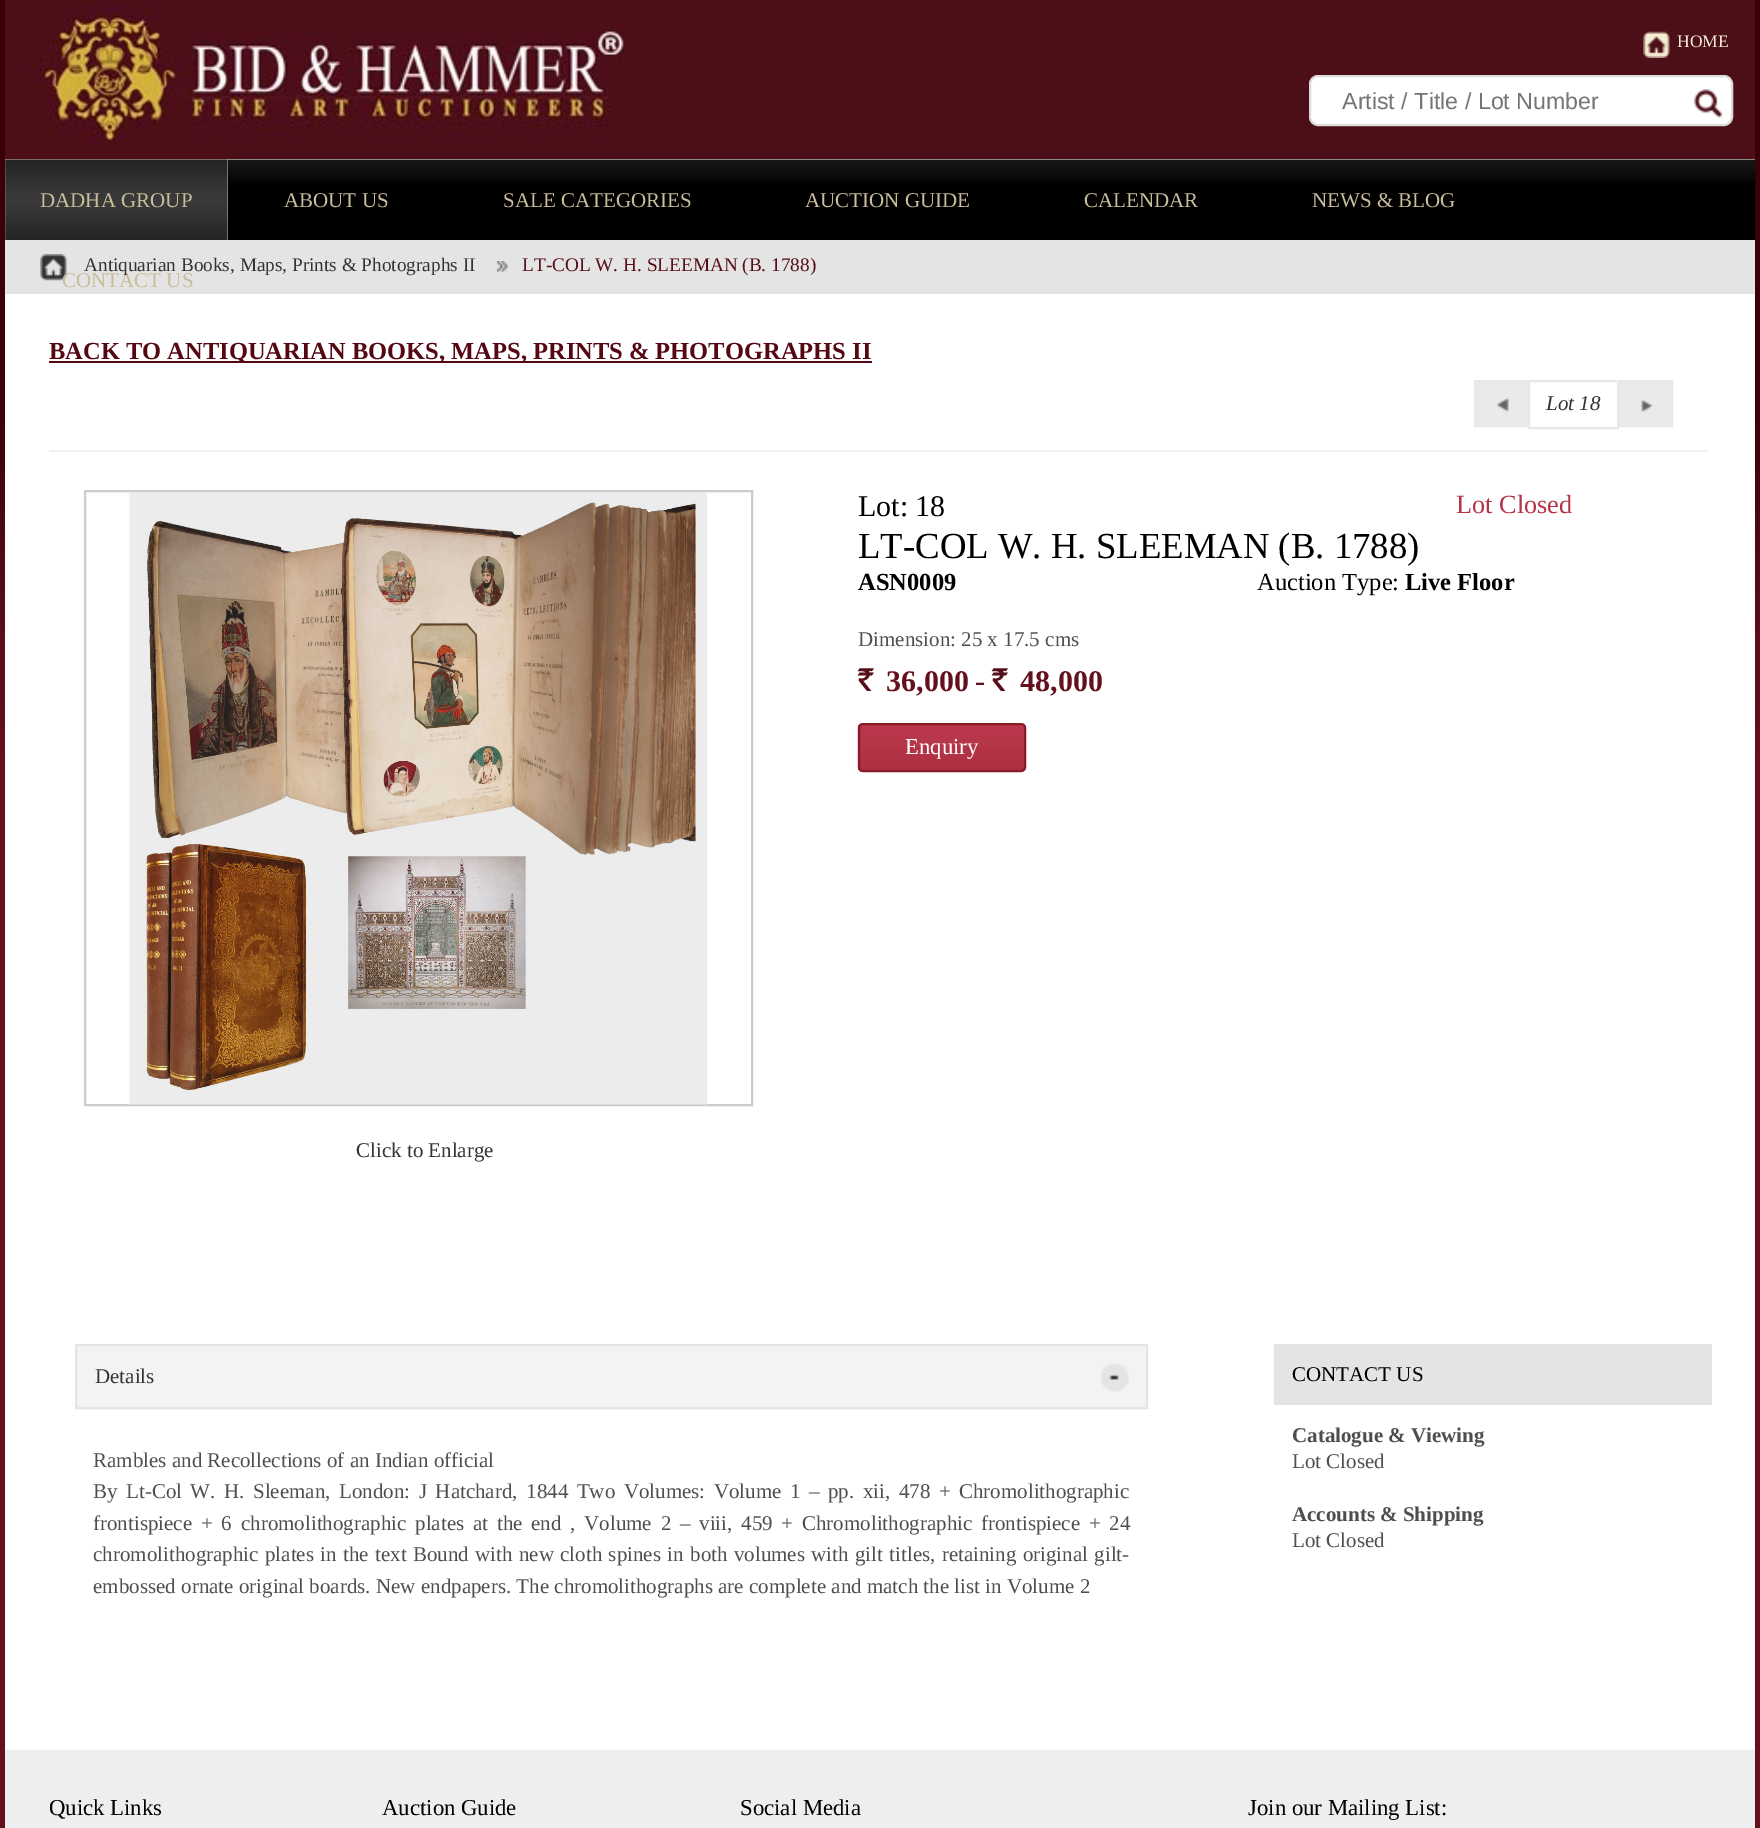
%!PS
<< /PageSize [1760 1828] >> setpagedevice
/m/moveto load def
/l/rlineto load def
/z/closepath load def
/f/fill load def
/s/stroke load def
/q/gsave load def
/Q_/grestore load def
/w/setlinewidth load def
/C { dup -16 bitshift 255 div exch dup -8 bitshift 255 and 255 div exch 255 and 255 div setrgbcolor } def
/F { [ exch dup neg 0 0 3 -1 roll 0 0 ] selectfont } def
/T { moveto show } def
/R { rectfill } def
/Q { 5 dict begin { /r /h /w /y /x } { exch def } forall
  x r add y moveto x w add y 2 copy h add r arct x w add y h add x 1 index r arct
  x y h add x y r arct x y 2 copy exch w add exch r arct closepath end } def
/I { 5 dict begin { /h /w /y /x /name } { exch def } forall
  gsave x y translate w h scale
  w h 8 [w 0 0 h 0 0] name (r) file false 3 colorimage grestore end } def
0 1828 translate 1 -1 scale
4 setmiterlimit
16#65111D C
0 0 1760 1828 R
(1.rgb) 0 0 1760 750 I
16#FFFFFF C
5 159 1750 1591 R
16#4C0F17 C
5 0 1750 159 R
(2.rgb) 23 2 604 141 I
(3.rgb) 1643 31 27 27 I
/LiberationSerif-Regular 17.5 F
16#F6EDD5 C
(HOME) 1677 47 T
16#FFFFFF C
1310 76 422 49 8 Q q f Q_
16#DCDBDB C
2 w
s
/LiberationSans-Regular 23.25 F
16#757575 C
(Artist / Title / Lot Number) 1342 109 T
(4.rgb) 1694 89 28 29 I
(5.rgb) 228 159 1528 81 I
16#CABD9C C
5 159 223 81 R
(6.rgb) 5 159 223 81 I
/LiberationSerif-Regular 21 F
(DADHA GROUP) 40 207 T
(ABOUT US) 284 207 T
(SALE CATEGORIES) 503 207 T
(AUCTION GUIDE) 805 207 T
(CALENDAR) 1084 207 T
(NEWS & BLOG) 1312 207 T
16#E4E4E4 C
5 240 1750 54 R
(7.rgb) 40 254 27 27 I
16#CABD9C C
(CONTACT US) 62 287 T
/LiberationSerif-Regular 19.25 F
16#333333 C
(Antiquarian Books, Maps, Prints & Photographs II) 84 271 T
(8.rgb) 497 261 11 11 I
16#560E18 C
(LT-COL W. H. SLEEMAN \(B. 1788\)) 522 271 T
16#550712 C
49 361 823 2 R
/LiberationSerif-Bold 24.5 F
(BACK TO ANTIQUARIAN BOOKS, MAPS, PRINTS & PHOTOGRAPHS II) 49 359 T
16#EFEFEF C
49 450 1659 2 R
16#EAEAEA C
1476 382 50 43 R
(9.rgb) 1496 397 13 15 I
16#E8E8E8 C
1475 381 52 45 rectstroke
1529 381 89 47 rectstroke
/LiberationSerif-Italic 21 F
16#333333 C
(Lot 18) 1546 410 T
16#EAEAEA C
1621 382 50 43 R
(10.rgb) 1641 399 12 13 I
16#E8E8E8 C
1620 381 52 45 rectstroke
/LiberationSerif-Regular 30 F
16#000000 C
(Lot: 18) 858 516 T
/LiberationSerif-Regular 26.25 F
16#B43347 C
(Lot Closed) 1456 513 T
/LiberationSerif-Regular 36.75 F
16#000000 C
(LT-COL W. H. SLEEMAN \(B. 1788\)) 858 558 T
/LiberationSerif-Bold 24.5 F
(ASN0009) 858 590 T
/LiberationSerif-Regular 24.5 F
(Auction Type:) 1257 590 T
/LiberationSerif-Bold 24.5 F
(Live Floor) 1405 590 T
/LiberationSerif-Regular 21 F
16#4E4E4E C
(Dimension: 25 x 17.5 cms) 858 646 T
/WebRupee-Bold 30 F
16#560E18 C
(R) 858 691 T
/LiberationSerif-Bold 30 F
16#65111D C
(36,000) 886 691 T
/LiberationSerif-Regular 30 F
(-) 975 691 T
/WebRupee-Bold 30 F
16#560E18 C
(R) 992 691 T
/LiberationSerif-Bold 30 F
16#65111D C
(48,000) 1020 691 T
(11.rgb) 857 724 169 48 I
16#891C26 C
859 724 166 47 4 Q s
/LiberationSerif-Regular 22.75 F
16#FFFFFF C
(Enquiry) 905 754 T
16#CCCCCC C
85 491 667 614 rectstroke
(12.rgb) 129 492 578 613 I
/LiberationSerif-Regular 21 F
16#333333 C
(Click to Enlarge) 356 1157 T
16#F3F3F3 C
76 1345 m 1071 0 l 0 63 l -1071 0 l z q f Q_
16#E4E4E4 C
s
16#333333 C
(Details) 95 1383 T
(13.rgb) 1101 1363 28 29 I
16#4E4E4E C
(Rambles and Recollections of an Indian official) 93 1467 T
93 1498 m 3.25 0 32 (By Lt-Col W. H. Sleeman, London: J Hatchard, 1844 Two Volumes: Volume 1 – pp. xii, 478 + Chromolithographic) widthshow
93 1530 m 3.5 0 32 (frontispiece + 6 chromolithographic plates at the end , Volume 2 – viii, 459 + Chromolithographic frontispiece + 24) widthshow
93 1561 m 1.1 0 32 (chromolithographic plates in the text Bound with new cloth spines in both volumes with gilt titles, retaining original gilt-) widthshow
(embossed ornate original boards. New endpapers. The chromolithographs are complete and match the list in Volume 2) 93 1593 T
16#E4E4E4 C
1274 1344 438 61 R
16#000000 C
(CONTACT US) 1292 1381 T
/LiberationSerif-Bold 21 F
16#4E4E4E C
(Catalogue & Viewing) 1292 1442 T
/LiberationSerif-Regular 21 F
(Lot Closed) 1292 1468 T
/LiberationSerif-Bold 21 F
(Accounts & Shipping) 1292 1521 T
/LiberationSerif-Regular 21 F
(Lot Closed) 1292 1547 T
16#EEEEEE C
5 1750 1750 78 R
/LiberationSerif-Regular 22.75 F
16#000000 C
(Quick Links) 49 1815 T
(Auction Guide) 382 1815 T
(Social Media) 740 1815 T
(Join our Mailing List:) 1248 1815 T
showpage
